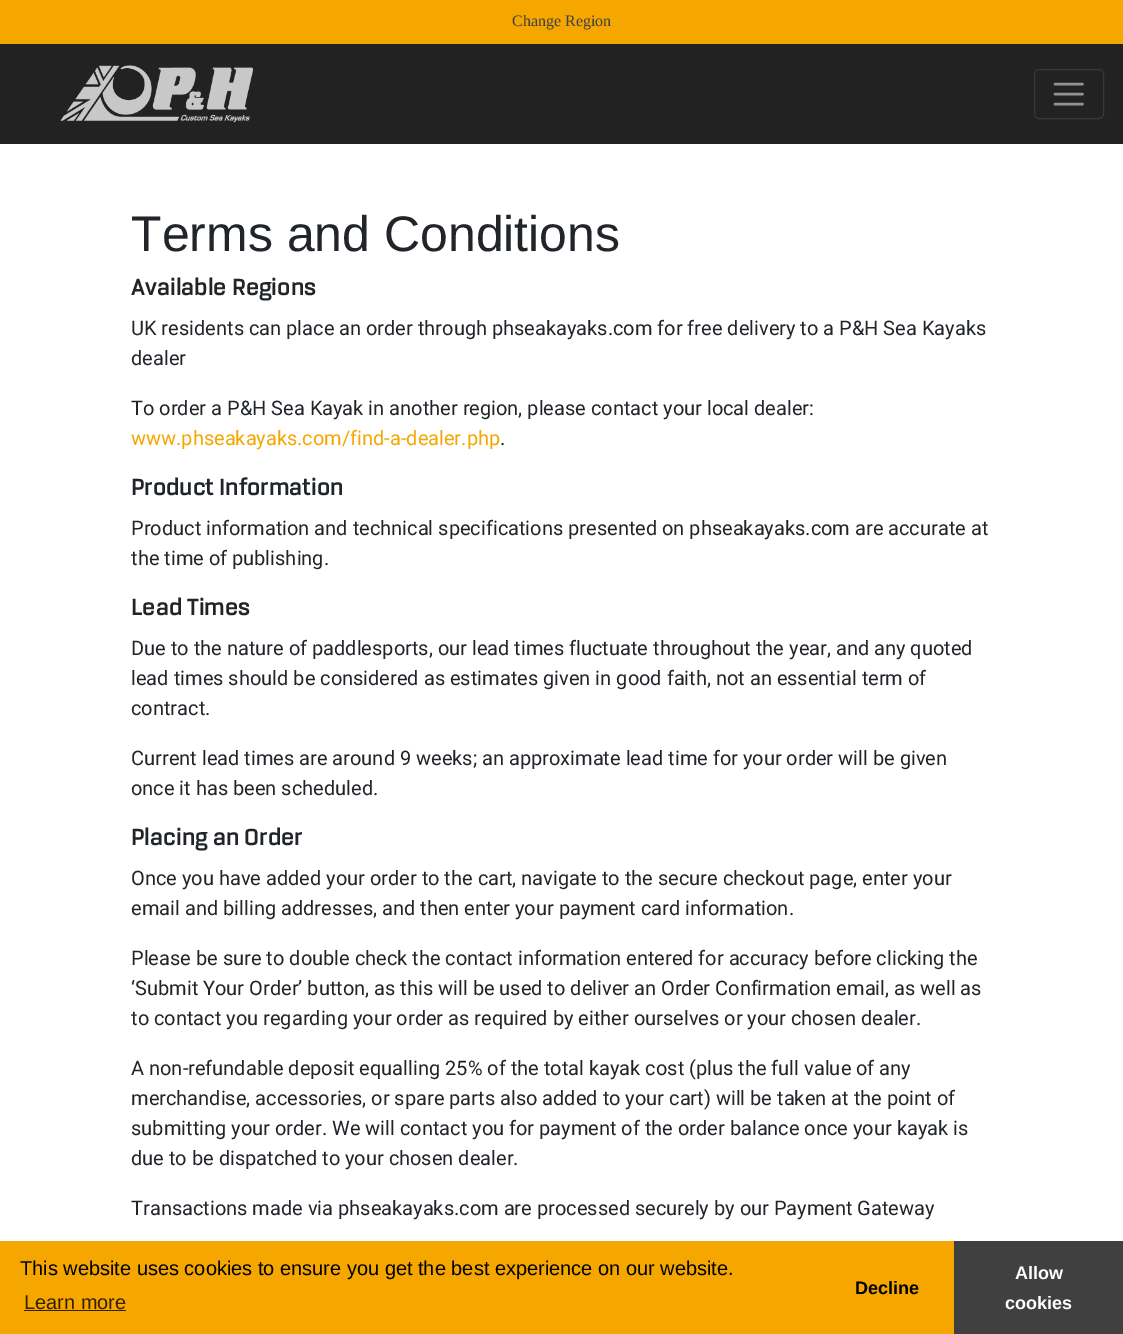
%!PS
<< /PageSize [1123 1334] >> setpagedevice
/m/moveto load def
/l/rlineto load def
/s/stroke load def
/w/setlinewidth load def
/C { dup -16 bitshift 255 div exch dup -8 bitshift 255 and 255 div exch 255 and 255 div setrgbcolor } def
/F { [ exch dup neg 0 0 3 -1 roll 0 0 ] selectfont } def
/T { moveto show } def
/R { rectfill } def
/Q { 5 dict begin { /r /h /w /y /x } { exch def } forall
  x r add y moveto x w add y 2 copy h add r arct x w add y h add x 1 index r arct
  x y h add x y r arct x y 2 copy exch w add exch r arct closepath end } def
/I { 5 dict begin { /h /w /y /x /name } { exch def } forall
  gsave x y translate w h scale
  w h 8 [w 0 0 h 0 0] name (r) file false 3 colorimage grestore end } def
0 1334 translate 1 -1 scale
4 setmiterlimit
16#FFFFFF C
0 0 1123 1334 R
16#F5A700 C
0 0 1123 44 R
/LiberationSerif-Regular 16 F
16#404040 C
(Change Region) 512 26 T
16#222222 C
0 44 1123 100 R
(1.rgb) 60 65 193 58 I
16#383838 C
1034.5 69.5 69 49 4.5 Q s
16#919191 C
2.5 w
1 setlinecap
1055 84 m 27.5 0 l 1055 94 m 27.5 0 l 1055 104 m 27.5 0 l s
/LiberationSans-Regular 50 F
16#212529 C
(Terms and Conditions) 131 251 T
/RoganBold-Regular 25 F
(Available Regions) 131 295 T
/Roboto-Regular 20 F
(UK residents can place an order through phseakayaks.com for free delivery to a P&H Sea Kayaks) 131 335 T
(dealer) 131 365 T
(To order a P&H Sea Kayak in another region, please contact your local dealer:) 131 415 T
16#F5A700 C
(www.phseakayaks.com/find-a-dealer.php) 131 445 T
16#212529 C
(.) 500 445 T
/RoganBold-Regular 25 F
(Product Information) 131 495 T
/Roboto-Regular 20 F
(Product information and technical specifications presented on phseakayaks.com are accurate at) 131 535 T
(the time of publishing.) 131 565 T
/RoganBold-Regular 25 F
(Lead Times) 131 615 T
/Roboto-Regular 20 F
(Due to the nature of paddlesports, our lead times fluctuate throughout the year, and any quoted) 131 655 T
(lead times should be considered as estimates given in good faith, not an essential term of) 131 685 T
(contract.) 131 715 T
(Current lead times are around 9 weeks; an approximate lead time for your order will be given) 131 765 T
(once it has been scheduled.) 131 795 T
/RoganBold-Regular 25 F
(Placing an Order) 131 845 T
/Roboto-Regular 20 F
(Once you have added your order to the cart, navigate to the secure checkout page, enter your) 131 885 T
(email and billing addresses, and then enter your payment card information.) 131 915 T
(Please be sure to double check the contact information entered for accuracy before clicking the) 131 965 T
(‘Submit Your Order’ button, as this will be used to deliver an Order Confirmation email, as well as) 131 995 T
(to contact you regarding your order as required by either ourselves or your chosen dealer.) 131 1025 T
(A non-refundable deposit equalling 25% of the total kayak cost \(plus the full value of any) 131 1075 T
(merchandise, accessories, or spare parts also added to your cart\) will be taken at the point of) 131 1105 T
(submitting your order. We will contact you for payment of the order balance once your kayak is) 131 1135 T
(due to be dispatched to your chosen dealer.) 131 1165 T
(Transactions made via phseakayaks.com are processed securely by our Payment Gateway) 131 1215 T
16#F5A700 C
0 1241 954 93 R
/LiberationSans-Regular 20 F
16#000000 C
(This website uses cookies to ensure you get the best experience on our website.) 20 1275 T
16#312100 C
(Learn more) 24 1309 T
24 1310 102 1 R
/LiberationSans-Bold 18 F
16#000000 C
(Decline) 855 1294 T
16#404040 C
954 1241 169 93 R
16#FFFFFF C
(Allow) 1015 1279 T
(cookies) 1005 1309 T
showpage
